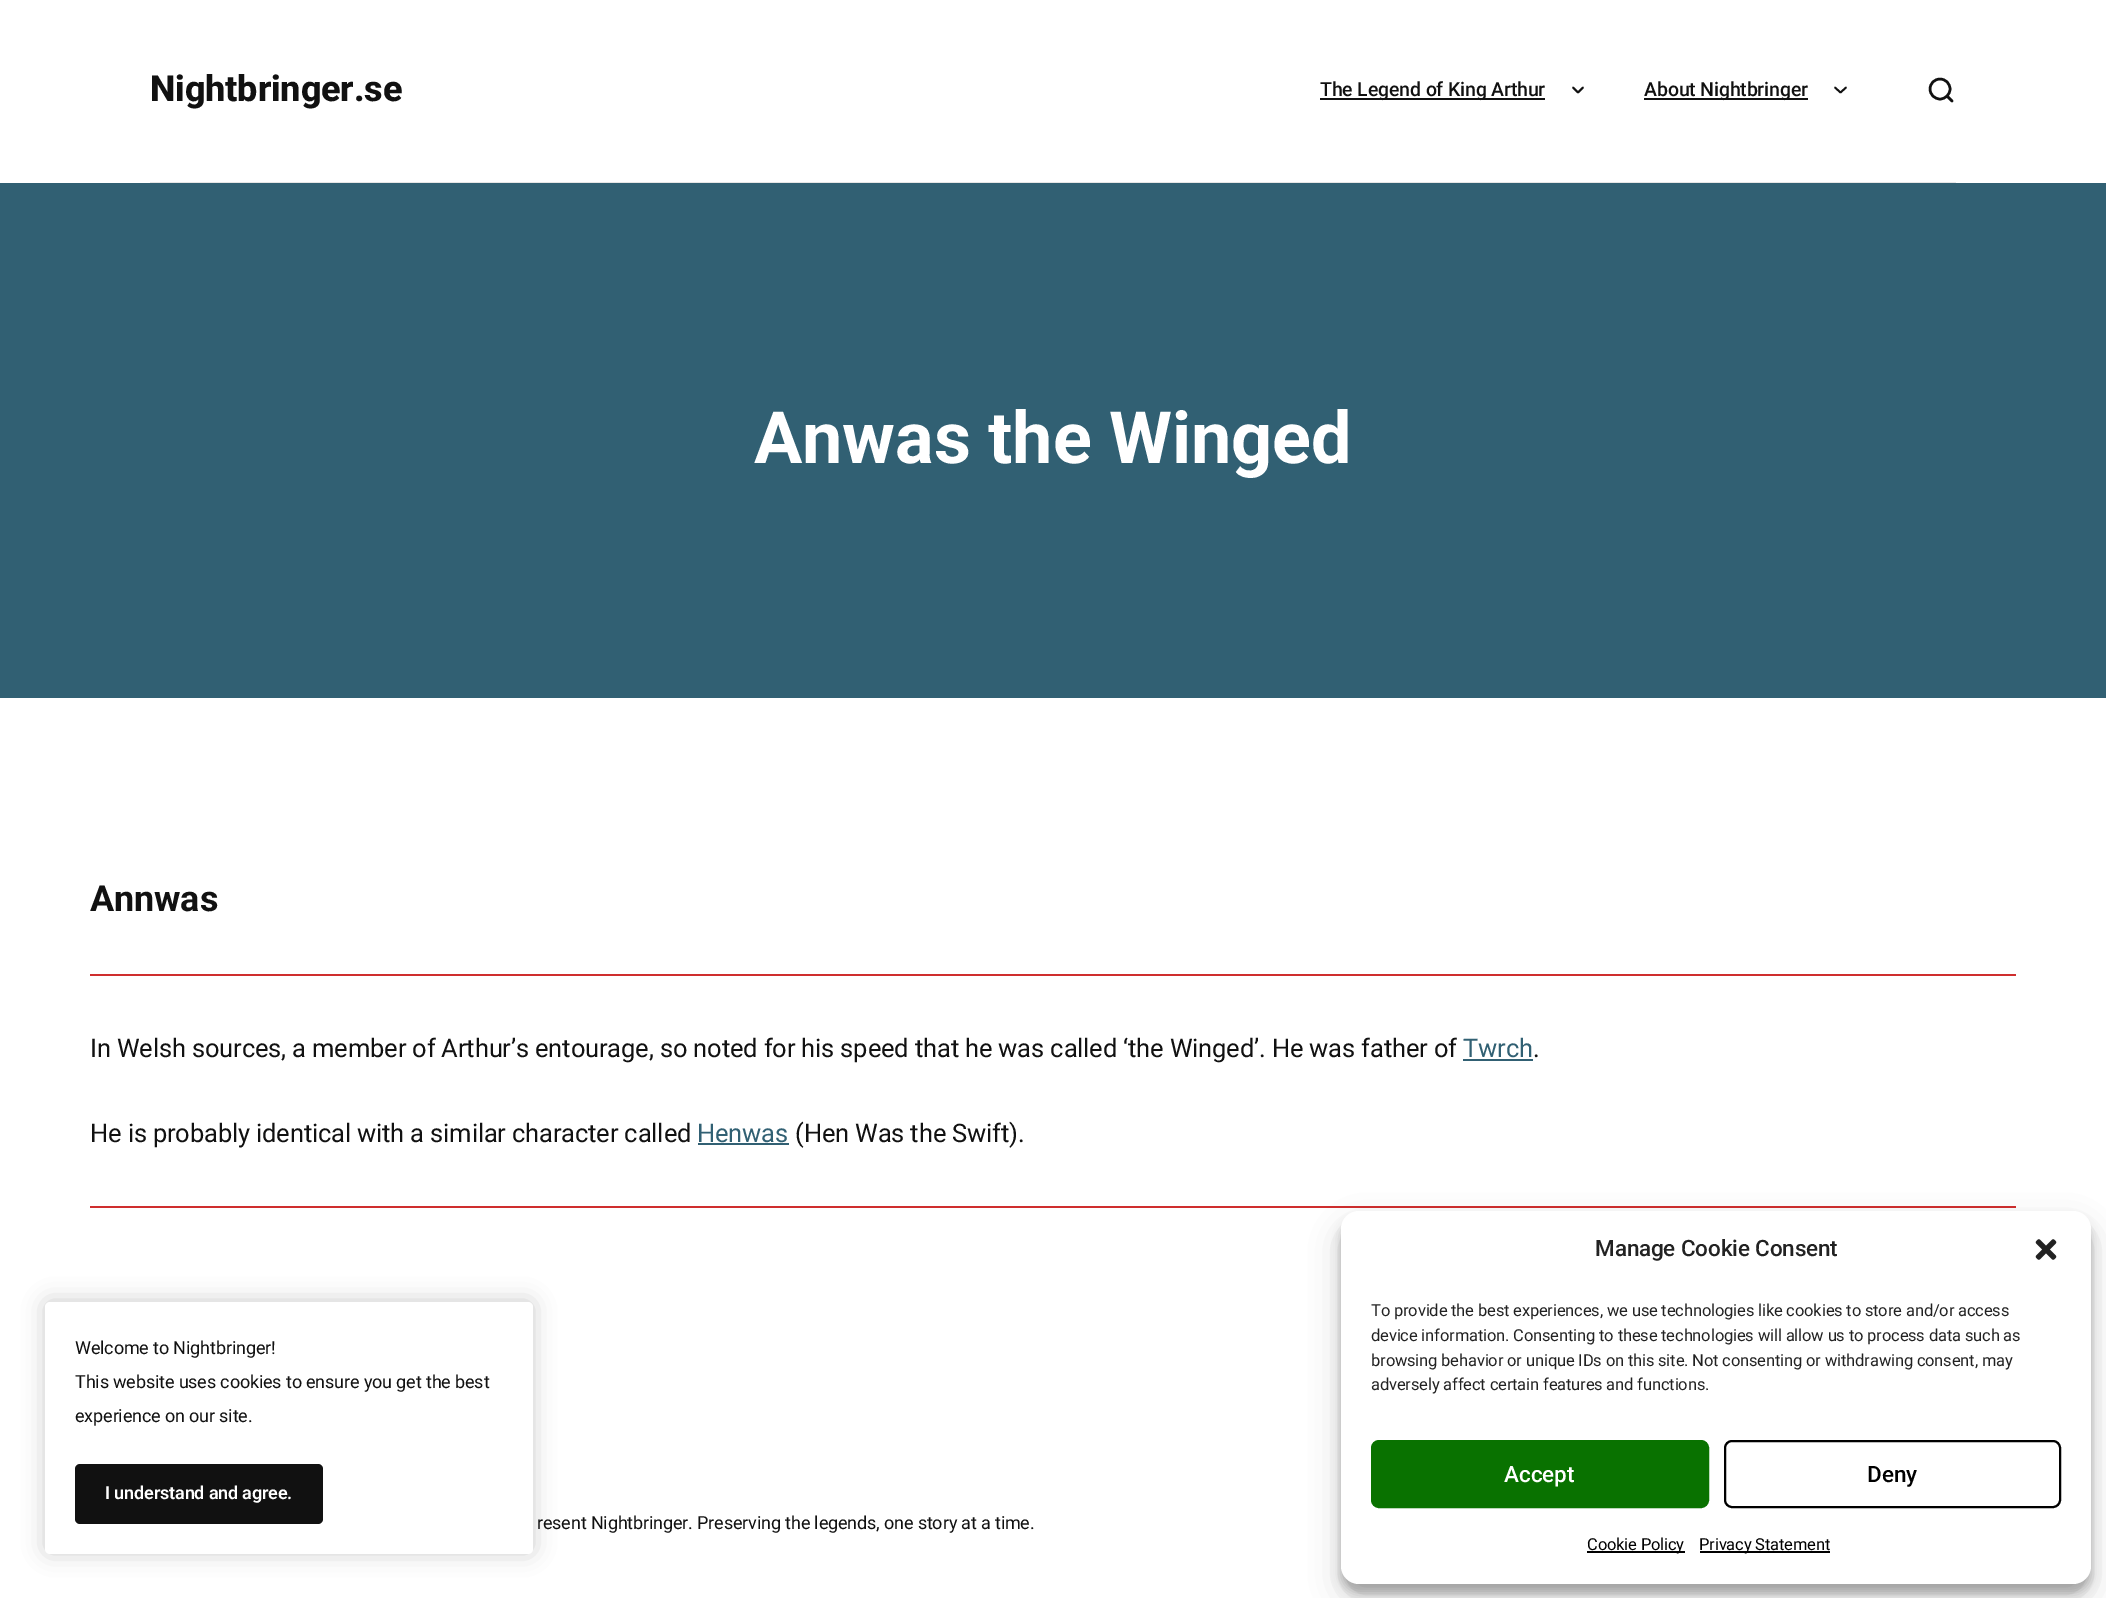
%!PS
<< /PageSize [2106 1598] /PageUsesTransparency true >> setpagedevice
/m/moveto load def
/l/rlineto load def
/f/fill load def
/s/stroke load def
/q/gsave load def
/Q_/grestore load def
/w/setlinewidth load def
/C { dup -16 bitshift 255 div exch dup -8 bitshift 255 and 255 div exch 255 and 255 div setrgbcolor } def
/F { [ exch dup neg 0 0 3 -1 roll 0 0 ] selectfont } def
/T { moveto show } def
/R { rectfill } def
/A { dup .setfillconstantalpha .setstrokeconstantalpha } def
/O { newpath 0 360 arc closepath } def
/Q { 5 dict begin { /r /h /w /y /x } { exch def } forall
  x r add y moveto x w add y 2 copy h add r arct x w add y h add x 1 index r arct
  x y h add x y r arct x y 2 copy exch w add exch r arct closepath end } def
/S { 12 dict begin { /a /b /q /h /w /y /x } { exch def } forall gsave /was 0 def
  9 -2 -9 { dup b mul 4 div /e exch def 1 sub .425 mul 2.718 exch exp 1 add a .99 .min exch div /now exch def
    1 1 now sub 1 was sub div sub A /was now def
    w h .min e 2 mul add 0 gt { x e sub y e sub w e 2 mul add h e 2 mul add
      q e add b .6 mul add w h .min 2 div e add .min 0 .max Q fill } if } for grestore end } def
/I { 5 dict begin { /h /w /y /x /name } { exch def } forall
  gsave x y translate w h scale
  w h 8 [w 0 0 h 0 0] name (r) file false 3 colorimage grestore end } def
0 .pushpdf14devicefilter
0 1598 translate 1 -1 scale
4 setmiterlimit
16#FFFFFF C
0 0 2106 1598 R
16#E6E6E6 C
150 182 1806 1 R
/Roboto-ExtraBold 36 F
16#111111 C
150 101 m -.15 0 (Nightbringer.se) ashow
1320 98 225 2 R
/Roboto-Medium 19.5 F
1320 96 m -.15 0 (The Legend of King Arthur) ashow
1.8 w
1 setlinecap
1 setlinejoin
1573 87.5 m 5 5 l 5 -5 l s
1644 98 164 2 R
1644 96 m -.15 0 (About Nightbringer) ashow
1835 87.5 m 5.5 5 l 5.5 -5 l s
2.5 w
0 setlinecap
0 setlinejoin
1940 89 10 O s
1 setlinecap
1 setlinejoin
1952 101 m -5 -5 l s
16#316073 C
0 183 2106 515 R
/Roboto-Bold 72 F
16#FFFFFF C
754 463 m -.15 0 (Anwas the Winged) ashow
/Roboto-Bold 36 F
16#111111 C
90 911 m -.15 0 (Annwas) ashow
16#CF2E2E C
90 974 1926 2 R
/Roboto-Regular 25.5 F
16#111111 C
90 1057 m -.15 0 (In Welsh sources, a member of Arthur’s entourage, so noted for his speed that he was called ‘the Winged’. He was father of) ashow
16#316073 C
1463 1057 m -.15 0 (Twrch) ashow
1463 1059 70 2 R
16#111111 C
1533 1057 m -.15 0 (.) ashow
90 1142 m -.15 0 (He is probably identical with a similar character called) ashow
16#316073 C
697 1142 m -.15 0 (Henwas) ashow
698 1143 91 2 R
16#111111 C
795 1142 m -.15 0 (\(Hen Was the Swift\).) ashow
16#CF2E2E C
90 1206 1926 2 R
16#000000 C
45 1301 488 252 5 11 .2 S
16#FFFFFF C
45 1302 488 252 5 Q f
/Roboto-Regular 18 F
16#111111 C
75 1354 m -.15 0 (Welcome to Nightbringer!) ashow
75 1388 m -.15 0 (This website uses cookies to ensure you get the best) ashow
75 1422 m -.15 0 (experience on our site.) ashow
75 1464 248 60 5 Q f
/Roboto-SemiBold 18 F
16#FFFFFF C
105 1499 m -.15 0 (I understand and agree.) ashow
16#000000 C
1341 1220 750 373 18 4.5 .23 S
1341 1226 750 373 18 15 .19 S
16#FFFFFF C
1341 1211 750 373 18 Q f
/Roboto-Medium 22.5 F
16#222222 C
1595 1256 m -.15 0 (Manage Cookie Consent) ashow
(1.rgb) 2035 1239 22 21 I
/Roboto-Regular 16.5 F
1371 1316 m -.15 0 (To provide the best experiences, we use technologies like cookies to store and/or access) ashow
1371 1341 m -.15 0 (device information. Consenting to these technologies will allow us to process data such as) ashow
1371 1366 m -.15 0 (browsing behavior or unique IDs on this site. Not consenting or withdrawing consent, may) ashow
1371 1390 m -.15 0 (adversely affect certain features and functions.) ashow
16#097200 C
1372 1441 336 66 7 Q q f Q_
2 w
0 setlinecap
0 setlinejoin
s
/Roboto-Medium 22.5 F
16#FFFFFF C
(Accept) 1504 1482 T
16#000000 C
1725 1441 335 66 7 Q s
(Deny) 1867 1482 T
1587 1551 98 2 R
/Roboto-Regular 16.5 F
1587 1550 m -.15 0 (Cookie Policy) ashow
1700 1551 130 2 R
1699 1550 m -.15 0 (Privacy Statement) ashow
/Roboto-Regular 18 F
16#111111 C
537 1529 m -.15 0 (resent Nightbringer. Preserving the legends, one story at a time.) ashow
.poppdf14devicefilter showpage
